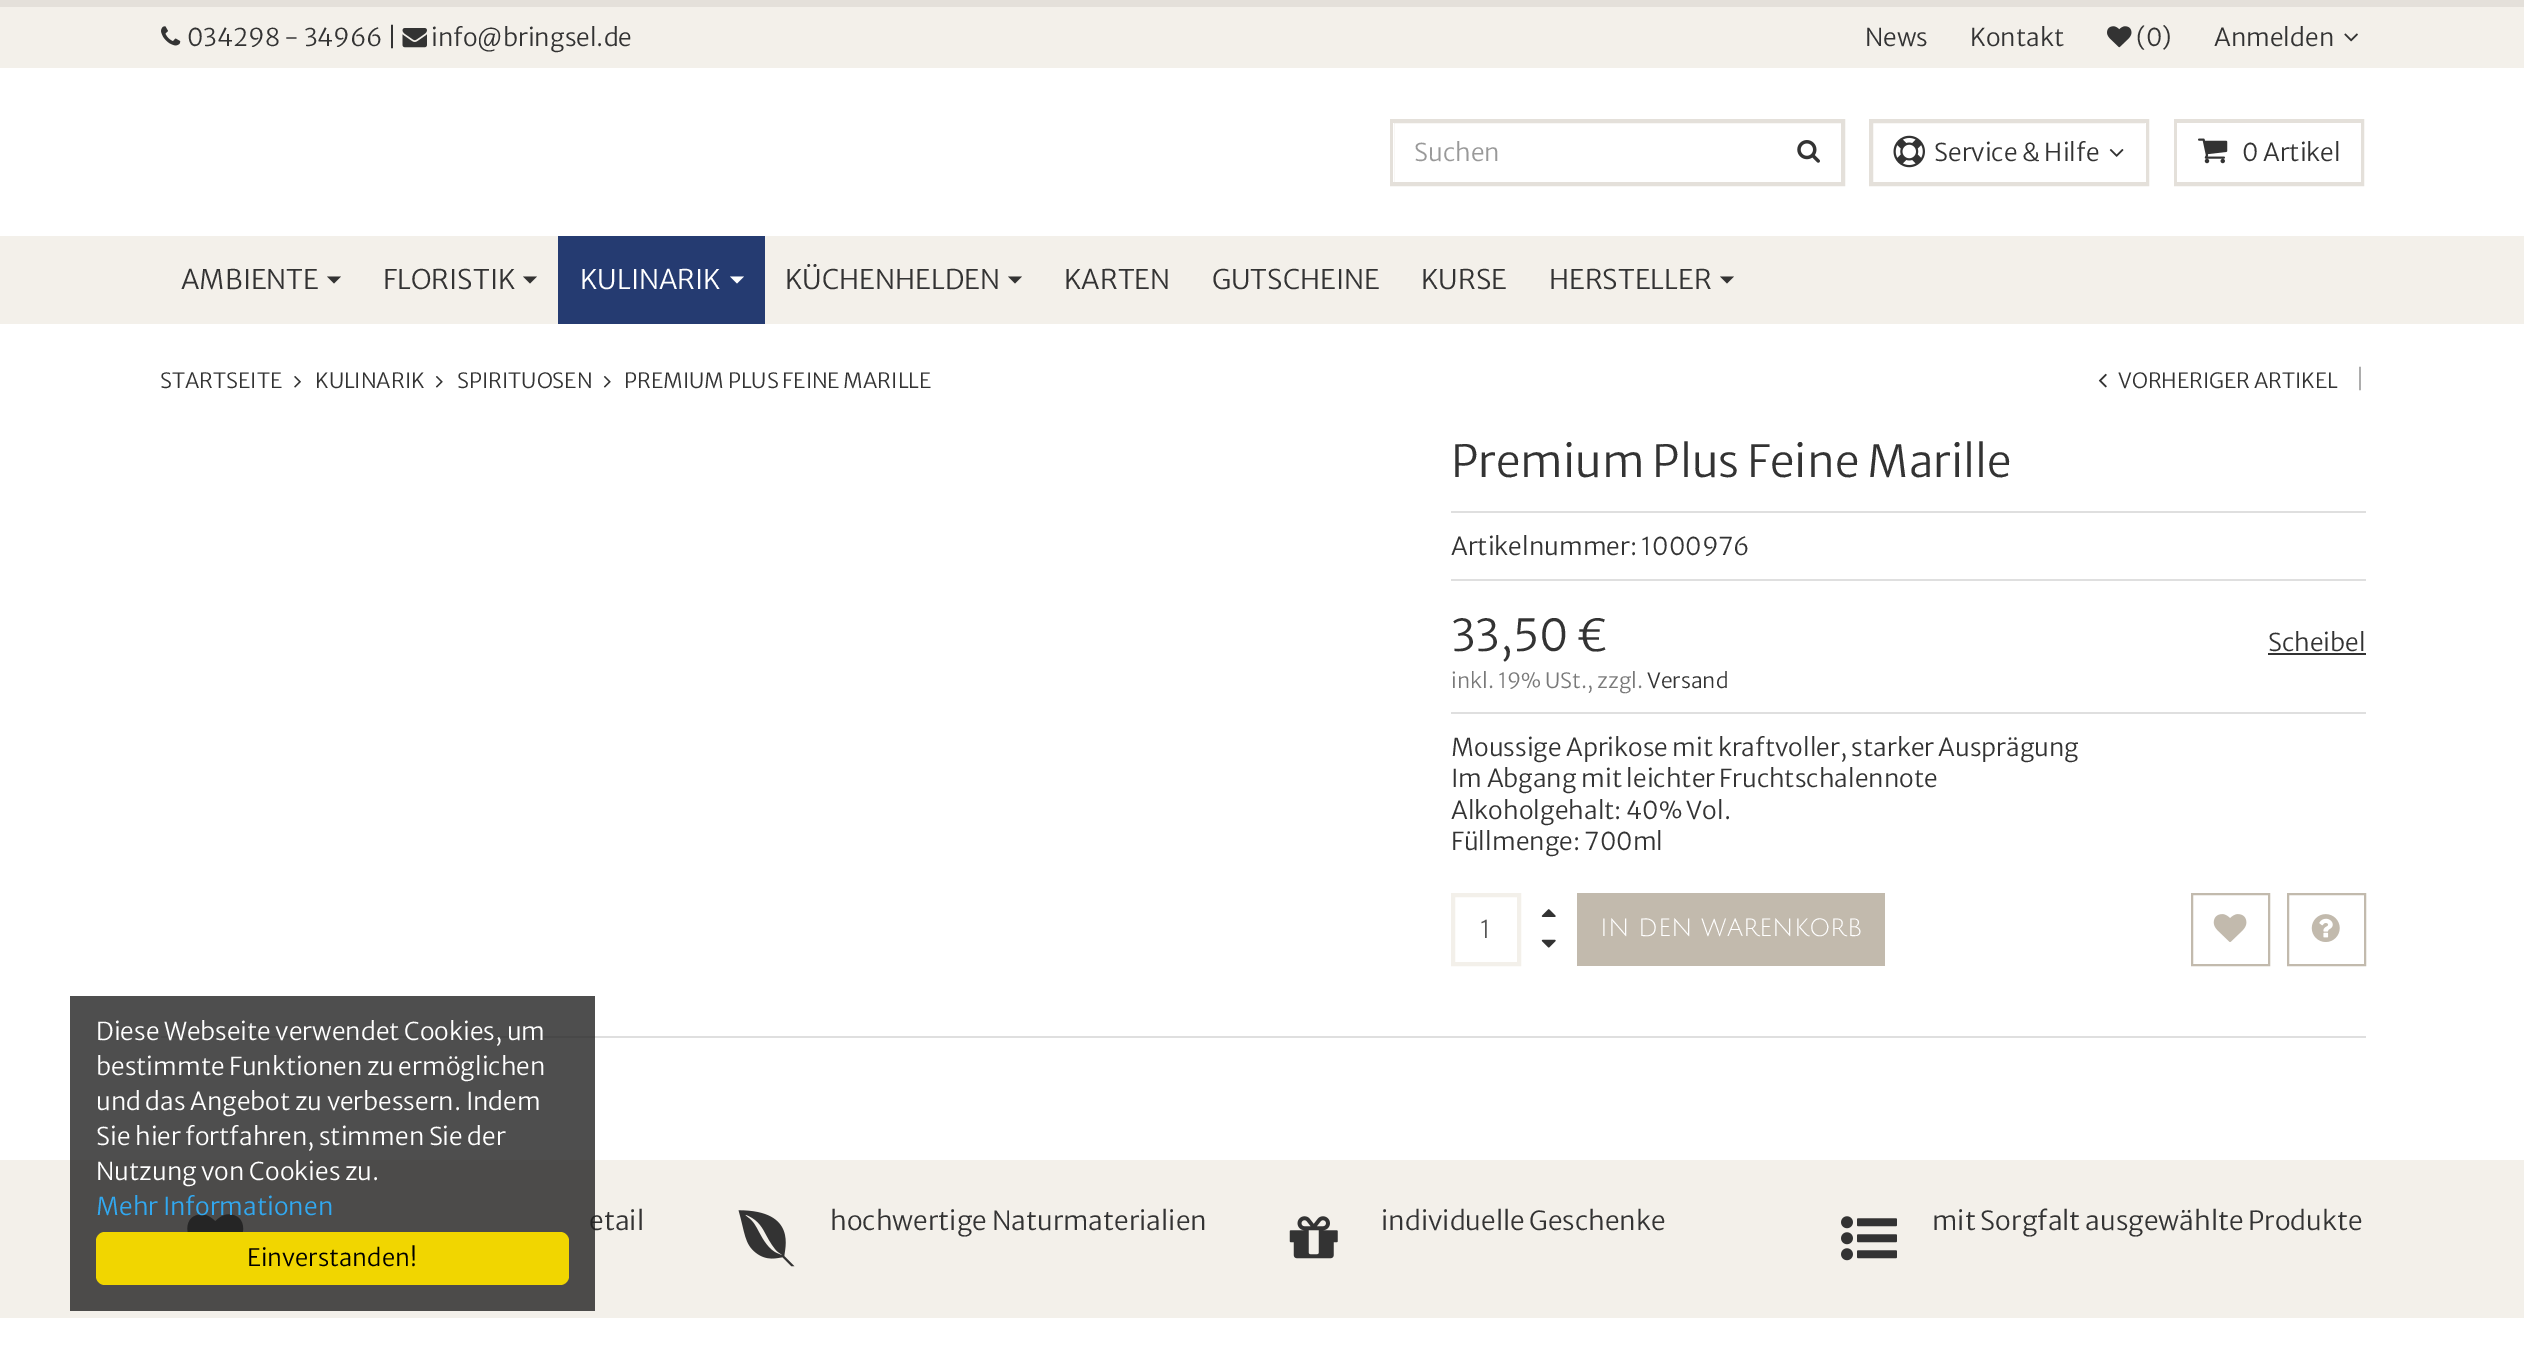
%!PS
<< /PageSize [2524 1345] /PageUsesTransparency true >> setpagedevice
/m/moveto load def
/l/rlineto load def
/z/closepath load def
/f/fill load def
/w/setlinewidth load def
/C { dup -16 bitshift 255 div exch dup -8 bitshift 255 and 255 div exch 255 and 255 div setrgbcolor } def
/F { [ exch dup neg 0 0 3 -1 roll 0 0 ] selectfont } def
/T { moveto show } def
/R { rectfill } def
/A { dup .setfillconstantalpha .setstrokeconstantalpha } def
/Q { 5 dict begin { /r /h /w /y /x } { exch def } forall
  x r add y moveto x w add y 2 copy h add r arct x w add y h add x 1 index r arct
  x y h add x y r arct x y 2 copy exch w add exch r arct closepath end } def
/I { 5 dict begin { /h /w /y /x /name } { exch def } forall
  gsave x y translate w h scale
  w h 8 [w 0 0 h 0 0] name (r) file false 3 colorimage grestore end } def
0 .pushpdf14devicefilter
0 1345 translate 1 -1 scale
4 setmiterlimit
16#FFFFFF C
0 0 2524 1345 R
16#F3F0EA C
0 7 2524 61 R
16#E4E0DA C
0 0 2524 7 R
(1.rgb) 161 26 20 20 I
/MerriweatherSans-Light 24.5 F
16#333333 C
(034298 - 34966 |) 187 46 T
(2.rgb) 402 28 25 20 I
(info@bringsel.de) 431 46 T
(News) 1865 46 T
(Kontakt) 1970 46 T
(3.rgb) 2107 26 25 22 I
(\(0\)) 2136 46 T
(Anmelden) 2214 46 T
(4.rgb) 2344 33 14 9 I
16#E4E0DA C
4 w
1392 121 451 63 rectstroke
16#FFFFFF C
1393 123 1 59 R
16#999999 C
(Suchen) 1414 161 T
(5.rgb) 1797 140 23 23 I
16#E4E0DA C
1871 121 276 63 rectstroke
16#FFFFFF C
2145 123 1 59 R
(6.rgb) 1893 135 32 33 I
16#333333 C
(Service & Hilfe) 1934 161 T
(7.rgb) 2109 149 15 8 I
16#E4E0DA C
2176 121 186 63 rectstroke
16#FFFFFF C
2177 123 184 59 R
(8.rgb) 2198 138 30 26 I
16#333333 C
(0 Artikel) 2242 161 T
16#F3F0EA C
0 236 2524 88 R
/MerriweatherSans-Light 27 F
16#333333 C
(AMBIENTE) 181 289 T
327 276.5 m 14 0 l -7 7 l z f
(FLORISTIK) 383 289 T
523 276.5 m 14 0 l -7 7 l z f
16#253B71 C
558 236 207 88 R
16#FFFFFF C
(KULINARIK) 580 289 T
730 276.5 m 14 0 l -7 7 l z f
16#333333 C
(KÜCHENHELDEN) 785 289 T
1008 276.5 m 14 0 l -7 7 l z f
(KARTEN) 1064 289 T
(GUTSCHEINE) 1212 289 T
(KURSE) 1421 289 T
(HERSTELLER) 1549 289 T
1720 276.5 m 14 0 l -7 7 l z f
/MerriweatherSans-Light 21 F
(STARTSEITE) 160 388 T
(9.rgb) 294 376 7 12 I
(KULINARIK) 315 388 T
(10.rgb) 435 376 8 12 I
(SPIRITUOSEN) 457 388 T
(10.rgb) 603 376 8 12 I
(PREMIUM PLUS FEINE MARILLE) 624 388 T
(11.rgb) 2098 373 9 15 I
(VORHERIGER ARTIKEL) 2118 388 T
/MerriweatherSans-Light 24.5 F
16#ADADAD C
(|) 2355 388 T
16#DFDFDF C
1451 511 915 2 R
/MerriweatherSans-Light 44.1 F
16#333333 C
(Premium Plus Feine Marille) 1451 477 T
/MerriweatherSans-Light 24.5 F
(Artikelnummer: 1000976) 1451 555 T
16#DFDFDF C
1451 579 915 2 R
1451 712 915 2 R
/MerriweatherSans-Light 44 F
16#333333 C
(33,50 €) 1451 651 T
/MerriweatherSans-Light 21 F
16#797979 C
(inkl. 19% USt., zzgl.) 1451 688 T
16#333333 C
(Versand) 1647 688 T
/MerriweatherSans-Light 24.5 F
(Scheibel) 2268 651 T
2268 653 98 2 R
(Moussige Aprikose mit kraftvoller, starker Ausprägung) 1451 756 T
(Im Abgang mit leichter Fruchtschalennote) 1451 787 T
(Alkoholgehalt: 40% Vol.) 1451 819 T
(Füllmenge: 700ml) 1451 850 T
16#F3F0EA C
1453 895 66 69 rectstroke
16#555555 C
(1) 1480 938 T
(12.rgb) 1541 909 15 8 I
(13.rgb) 1541 939 15 9 I
16#C2BAAD C
1577 893 308 73 R
/JuliusSansOne-Regular 24.5 F
16#FFFFFF C
(IN DEN WARENKORB) 1600 936 T
16#C2BAAD C
2 w
2192 894 77 71 rectstroke
(14.rgb) 2213 914 34 28 I
2288 894 77 71 rectstroke
(15.rgb) 2311 914 29 28 I
16#DFDFDF C
161 1036 2205 2 R
16#F3F0EA C
0 1160 2524 158 R
(16.rgb) 187 1214 57 18 I
/MerriweatherSans-Light 26.25 F
16#333333 C
(etail) 589 1230 T
(17.rgb) 738 1210 57 57 I
(hochwertige Naturmaterialien) 830 1230 T
(18.rgb) 1289 1216 49 43 I
(individuelle Geschenke) 1381 1230 T
(19.rgb) 1841 1216 56 45 I
(mit Sorgfalt ausgewählte Produkte) 1932 1230 T
0.8 A
16#222222 C
70 996 525 315 R
/MerriweatherSans-Light 24.5 F
1 A
16#FFFFFF C
(Diese Webseite verwendet Cookies, um) 96 1040 T
(bestimmte Funktionen zu ermöglichen) 96 1075 T
(und das Angebot zu verbessern. Indem) 96 1110 T
(Sie hier fortfahren, stimmen Sie der) 96 1145 T
(Nutzung von Cookies zu.) 96 1180 T
16#31A8F0 C
(Mehr Informationen) 96 1215 T
16#F1D600 C
96 1232 473 53 9 Q f
/MerriweatherSans-Light 23.75 F
16#000000 C
(Einverstanden!) 247 1266 T
.poppdf14devicefilter showpage
